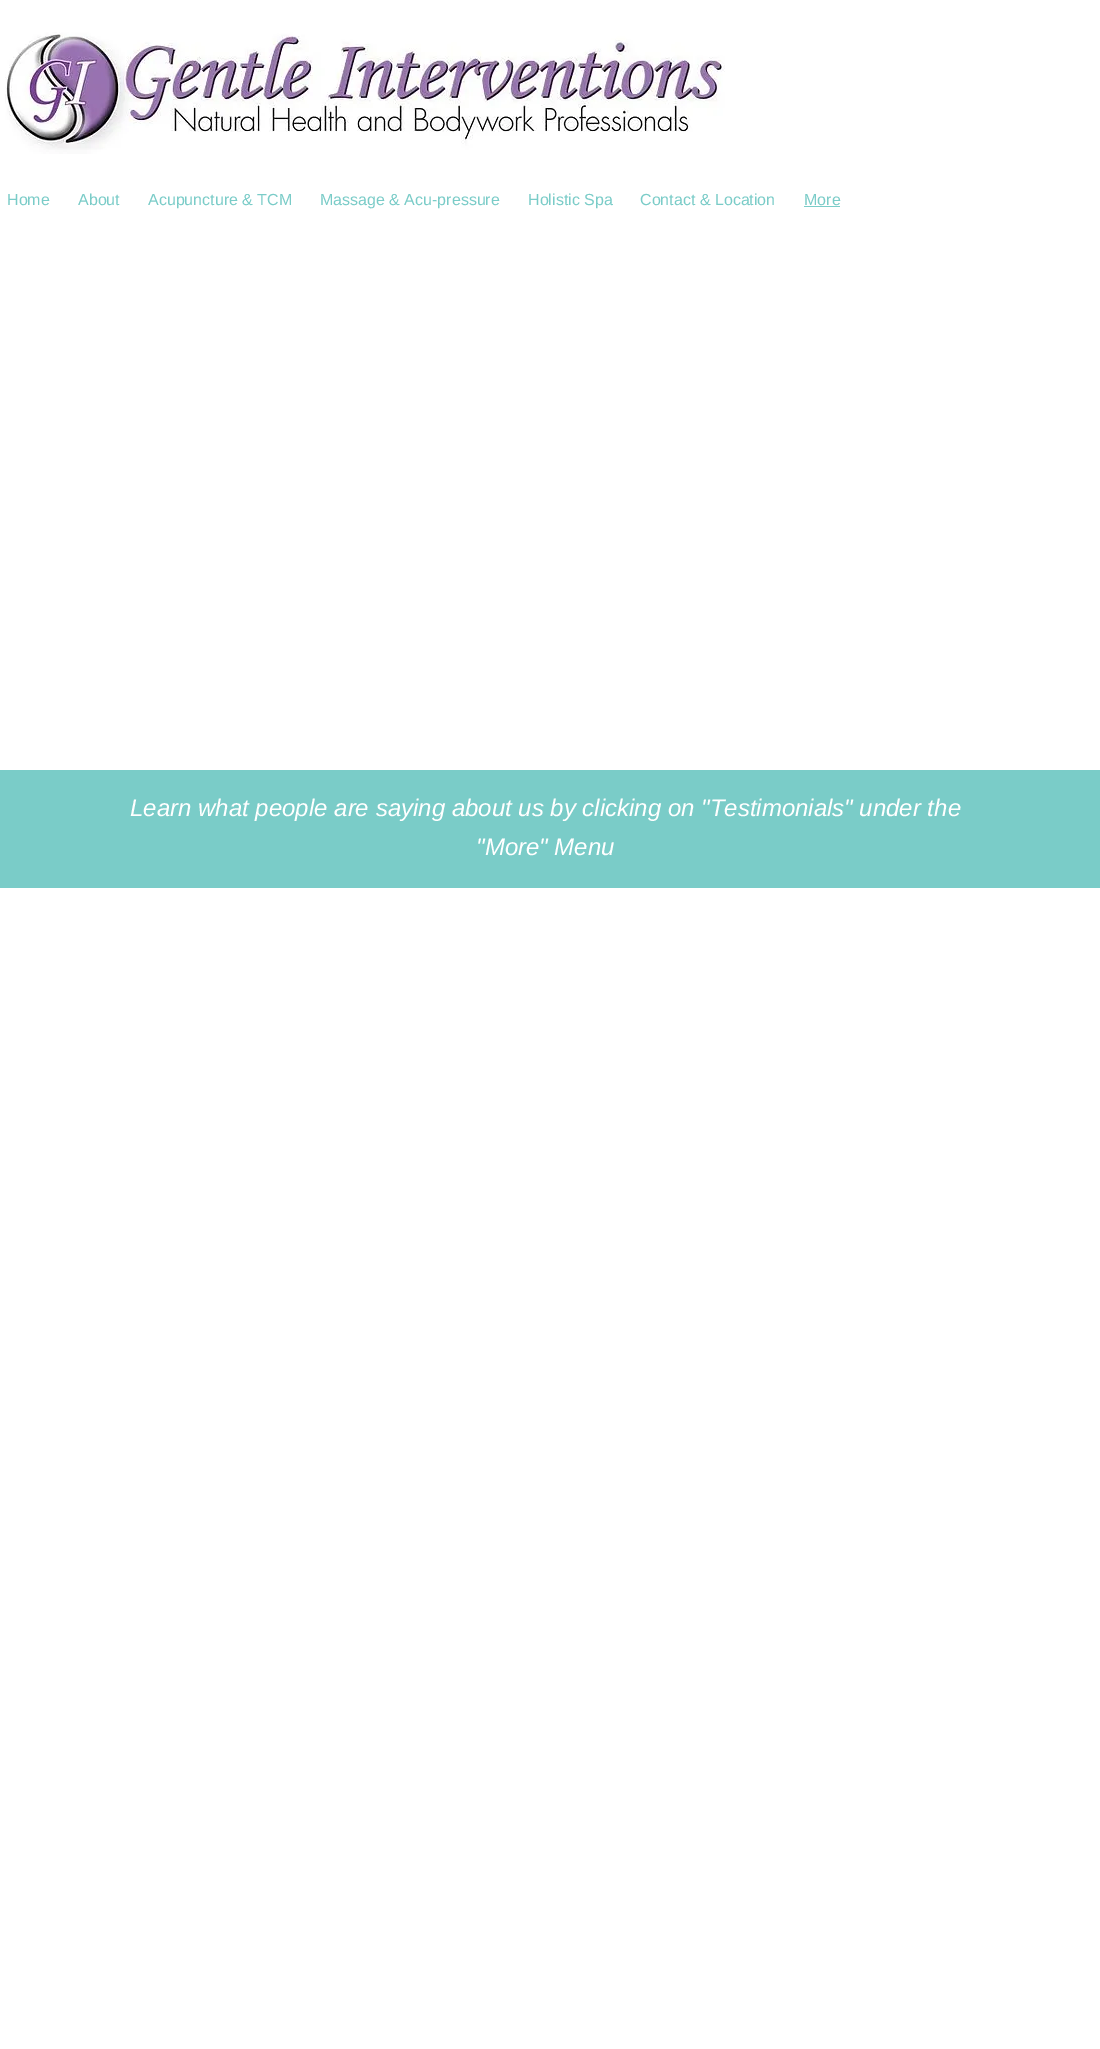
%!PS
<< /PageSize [1100 2049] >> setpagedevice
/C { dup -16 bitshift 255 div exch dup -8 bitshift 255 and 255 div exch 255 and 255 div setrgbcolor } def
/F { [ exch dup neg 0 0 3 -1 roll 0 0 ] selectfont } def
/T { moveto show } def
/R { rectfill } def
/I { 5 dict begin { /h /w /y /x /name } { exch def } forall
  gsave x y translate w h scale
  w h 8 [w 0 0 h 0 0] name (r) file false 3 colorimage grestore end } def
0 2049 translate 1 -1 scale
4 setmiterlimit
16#FFFFFF C
0 0 1100 2049 R
(1.rgb) 5 32 720 122 I
/Arimo-Regular 16 F
16#7ACCC8 C
(Home) 7 205 T
(About) 78 205 T
(Acupuncture & TCM) 148 205 T
(Massage & Acu-pressure) 320 205 T
(Holistic Spa) 528 205 T
(Contact & Location) 640 205 T
(More) 804 205 T
804 206 36 1 R
0 770 1100 118 R
/LiberationSans-Italic 24 F
16#FFFFFF C
(Learn what people are saying about us by clicking on "Testimonials" under the) 130 816 T
("More" Menu) 476 855 T
showpage
